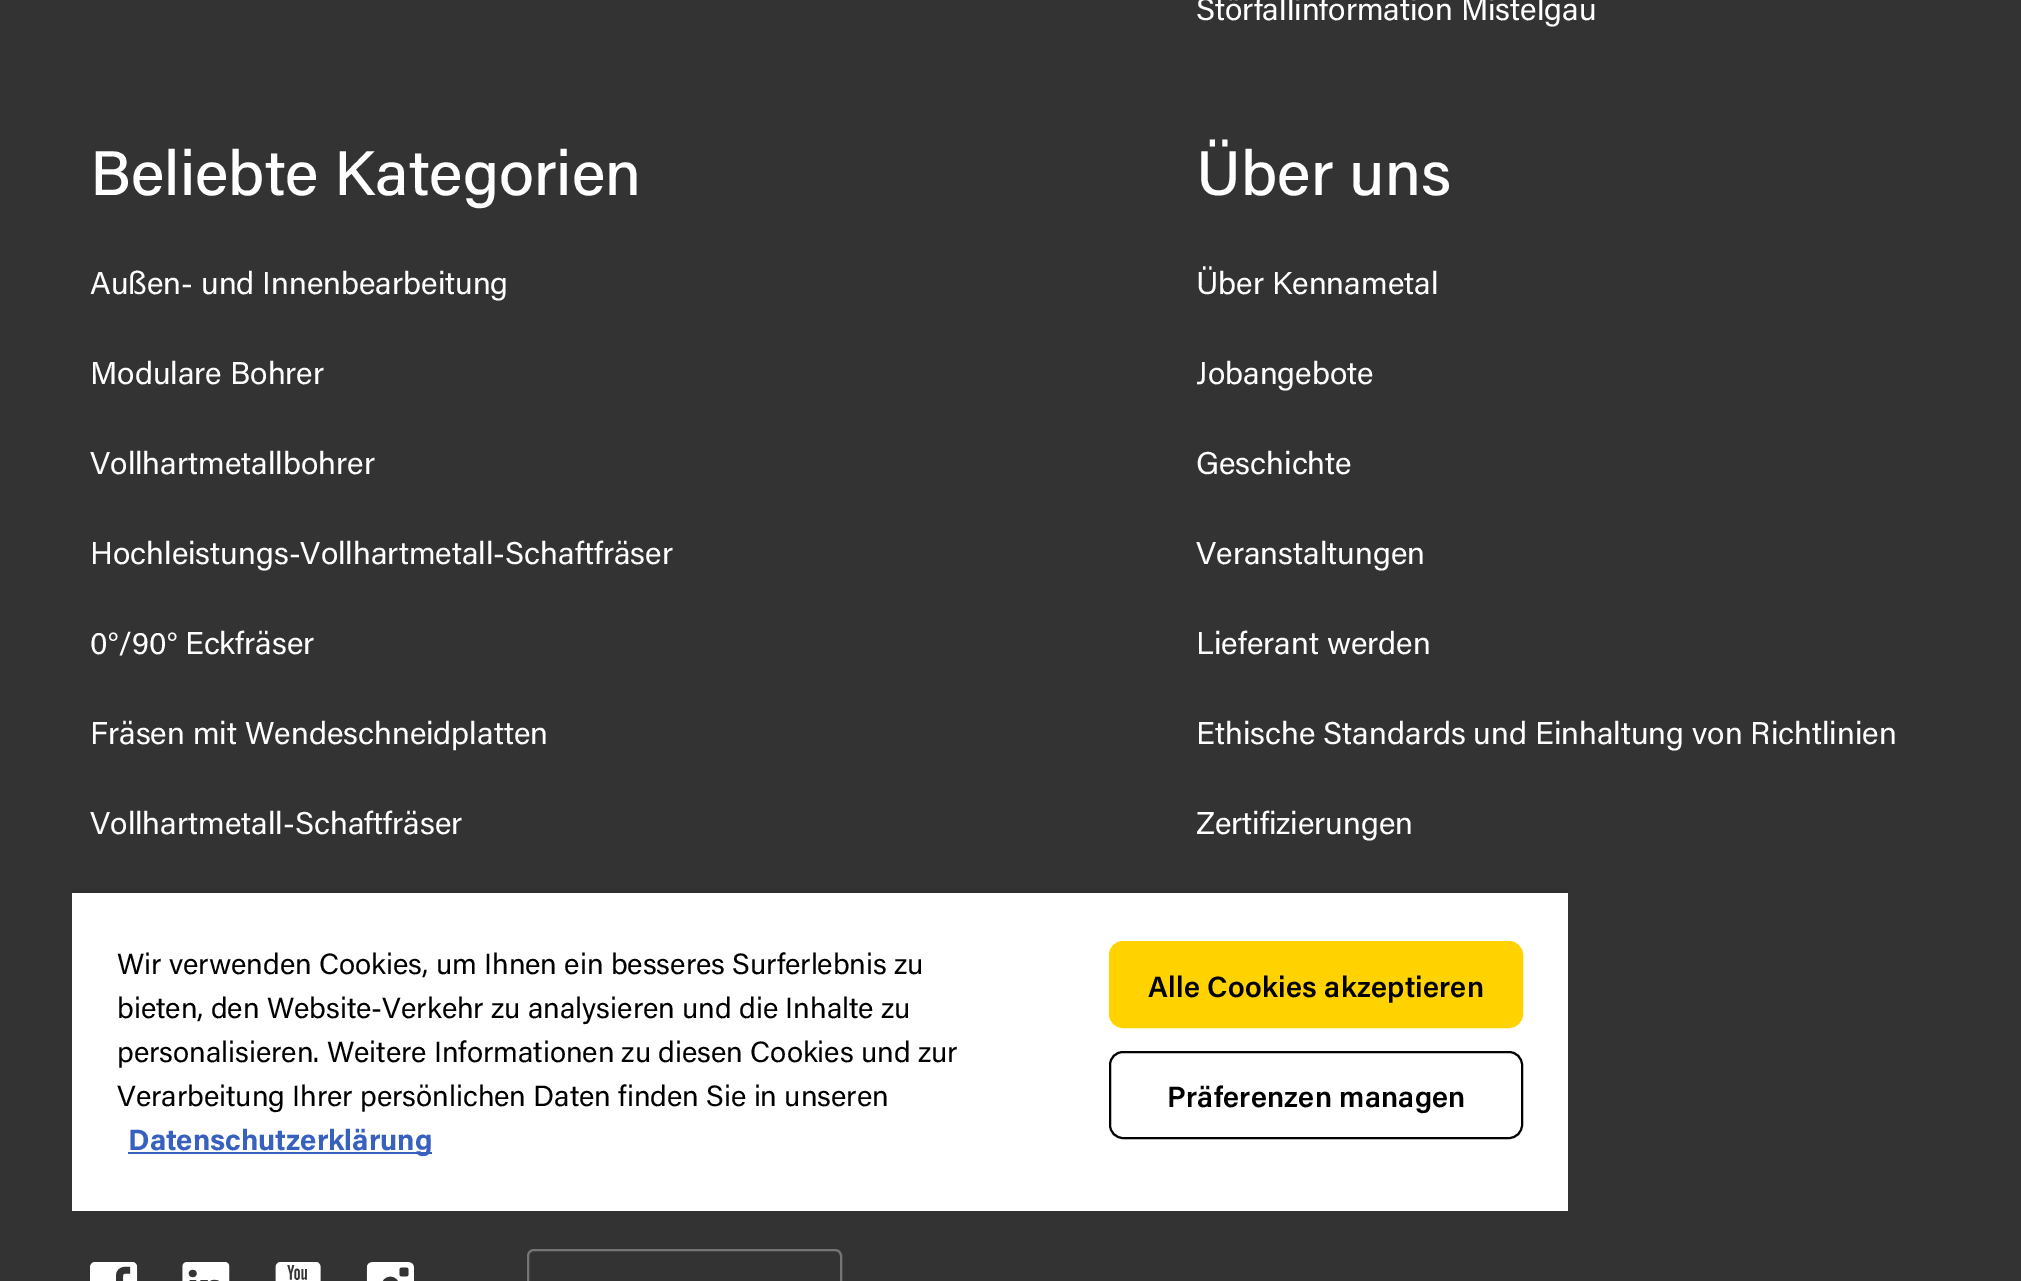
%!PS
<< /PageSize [2021 1281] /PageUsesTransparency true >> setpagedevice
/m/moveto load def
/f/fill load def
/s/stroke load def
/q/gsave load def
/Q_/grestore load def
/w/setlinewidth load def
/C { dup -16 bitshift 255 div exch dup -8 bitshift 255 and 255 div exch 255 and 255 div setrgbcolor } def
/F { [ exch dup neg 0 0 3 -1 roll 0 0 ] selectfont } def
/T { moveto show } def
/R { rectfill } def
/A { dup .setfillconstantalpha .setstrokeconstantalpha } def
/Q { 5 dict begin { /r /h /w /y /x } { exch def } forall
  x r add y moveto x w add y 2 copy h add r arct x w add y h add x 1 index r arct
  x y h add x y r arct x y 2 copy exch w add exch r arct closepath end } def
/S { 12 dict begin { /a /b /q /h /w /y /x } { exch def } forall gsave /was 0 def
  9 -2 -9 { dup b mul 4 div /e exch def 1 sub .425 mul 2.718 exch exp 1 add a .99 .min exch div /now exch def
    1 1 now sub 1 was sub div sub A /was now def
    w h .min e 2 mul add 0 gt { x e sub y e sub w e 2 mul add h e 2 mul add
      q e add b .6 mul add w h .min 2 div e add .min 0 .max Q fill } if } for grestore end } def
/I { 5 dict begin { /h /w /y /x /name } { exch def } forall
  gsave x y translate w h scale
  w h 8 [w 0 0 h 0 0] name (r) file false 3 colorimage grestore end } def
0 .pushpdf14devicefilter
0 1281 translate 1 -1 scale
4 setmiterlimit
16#333333 C
0 0 2021 1281 R
/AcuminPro-Regular 31.5 F
16#FFFFFF C
(Störfallinformation Mistelgau) 1196 20 T
/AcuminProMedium-Medium 63 F
(Beliebte Kategorien) 90 195 T
/AcuminPro-Regular 31.5 F
(Außen- und Innenbearbeitung) 90 294 T
(Modulare Bohrer) 90 384 T
(Vollhartmetallbohrer) 90 474 T
(Hochleistungs-Vollhartmetall-Schaftfräser) 90 564 T
(0°/90° Eckfräser) 90 654 T
(Fräsen mit Wendeschneidplatten) 90 744 T
(Vollhartmetall-Schaftfräser) 90 834 T
/AcuminProMedium-Medium 63 F
(Über uns) 1196 195 T
/AcuminPro-Regular 31.5 F
(Über Kennametal) 1196 294 T
(Jobangebote) 1196 384 T
(Geschichte) 1196 474 T
(Veranstaltungen) 1196 564 T
(Lieferant werden) 1196 654 T
(Ethische Standards und Einhaltung von Richtlinien) 1196 744 T
(Zertifizierungen) 1196 834 T
(1.rgb) 90 1262 48 19 I
(2.rgb) 182 1262 48 19 I
(3.rgb) 275 1262 46 19 I
(4.rgb) 366 1262 48 19 I
16#767576 C
2 w
528 1250 313 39 6 Q s
q
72 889 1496 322 rectclip
16#000000 C
72 893 1496 318 0 4.5 .2 S
Q_
16#FFFFFF C
72 893 1496 318 R
/AcuminPro-Regular 29.25 F
16#000000 C
(Wir verwenden Cookies, um Ihnen ein besseres Surferlebnis zu) 117 974 T
(bieten, den Website-Verkehr zu analysieren und die Inhalte zu) 117 1018 T
(personalisieren. Weitere Informationen zu diesen Cookies und zur) 117 1062 T
(Verarbeitung Ihrer persönlichen Daten finden Sie in unseren) 117 1106 T
16#3860BE C
128 1152 304 2 R
/AcuminPro-Bold 29.25 F
(Datenschutzerklärung) 128 1150 T
16#FFD200 C
1110 942 412 85 13 Q q f Q_
s
/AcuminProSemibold-SemiBold 29.25 F
16#000000 C
1148 997 m .25 0 (Alle Cookies akzeptieren) ashow
1110 1052 412 86 13 Q s
1167 1107 m .25 0 (Präferenzen managen) ashow
.poppdf14devicefilter showpage
